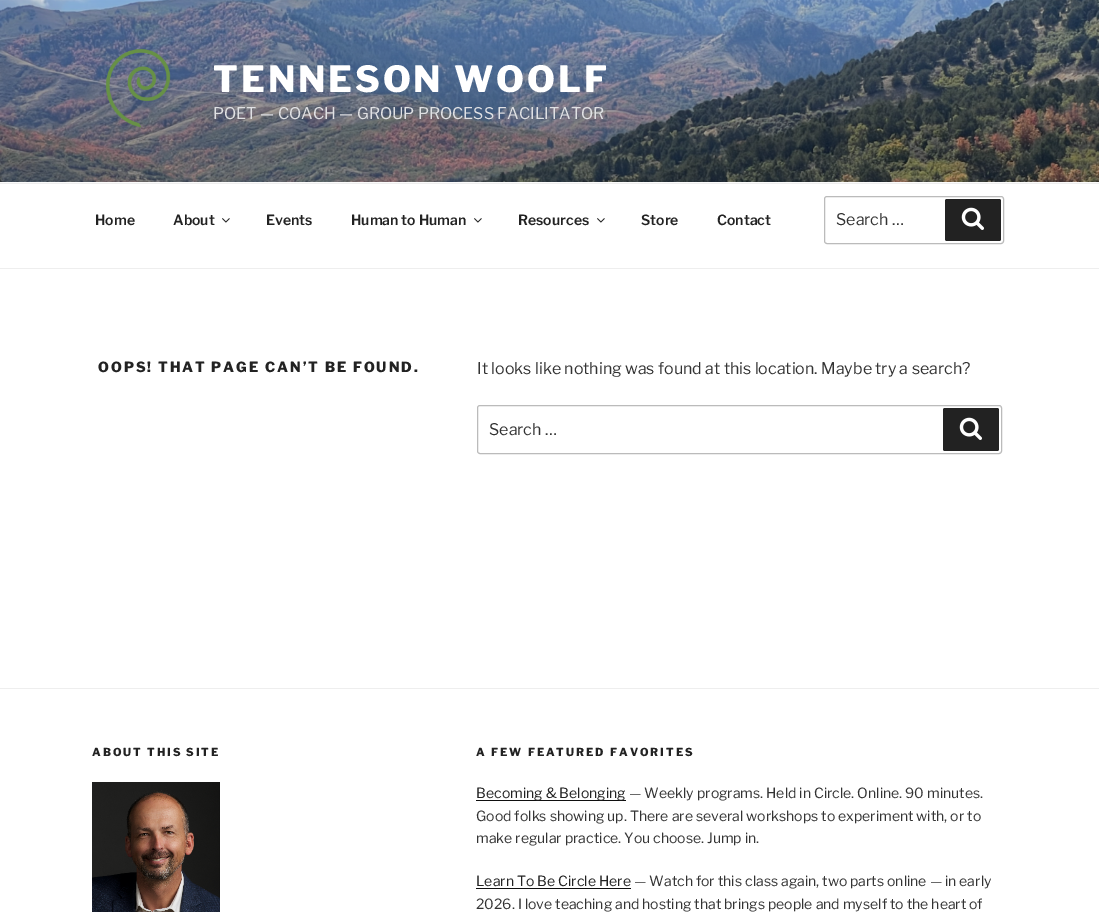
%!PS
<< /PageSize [1099 912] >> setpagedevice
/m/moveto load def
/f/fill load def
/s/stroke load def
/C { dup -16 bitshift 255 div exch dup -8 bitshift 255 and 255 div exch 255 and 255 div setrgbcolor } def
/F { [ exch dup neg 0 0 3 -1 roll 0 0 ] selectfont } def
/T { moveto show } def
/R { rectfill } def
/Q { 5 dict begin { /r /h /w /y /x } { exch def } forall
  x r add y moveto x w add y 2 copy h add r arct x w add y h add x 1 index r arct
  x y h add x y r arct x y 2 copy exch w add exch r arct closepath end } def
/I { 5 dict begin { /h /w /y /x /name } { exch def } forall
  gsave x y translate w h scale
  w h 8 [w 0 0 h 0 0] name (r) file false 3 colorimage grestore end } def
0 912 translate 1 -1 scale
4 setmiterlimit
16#FFFFFF C
0 0 1099 912 R
16#FAFAFA C
0 182 1099 1 R
(1.rgb) 0 0 1099 182 I
(2.rgb) 105 48 66 80 I
/LibreFranklin-Thin 36 F
16#FFFFFF C
213 92 m 2.9 0 (TENNESON WOOLF) ashow
/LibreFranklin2-Thin 16 F
16#E0E1E4 C
(POET — COACH — GROUP PROCESS FACILITATOR) 213 119 T
16#EEEEEE C
0 183 1099 1 R
0 268 1099 1 R
/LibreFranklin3-Thin 14 F
16#222222 C
(Home) 95 225 T
(About) 173 225 T
(3.rgb) 222 218 8 5 I
(Events) 266 225 T
(Human to Human) 351 225 T
(3.rgb) 474 218 8 5 I
(Resources) 518 225 T
(3.rgb) 597 218 8 5 I
(Store) 641 225 T
(Contact) 717 225 T
16#BBBBBB C
824.5 196.5 179 47 2.5 Q s
/LibreFranklin2-Thin 16 F
16#333333 C
(Search …) 836 225 T
16#222222 C
945 199 56 42 2 Q f
(4.rgb) 961 207 23 23 I
/LibreFranklin-Thin 14 F
98 372 m 1.95 0 (OOPS! THAT PAGE CAN’T BE FOUND.) ashow
/LibreFranklin2-Thin 16 F
16#333333 C
(It looks like nothing was found at this location. Maybe try a search?) 477 374 T
16#BBBBBB C
477.5 405.5 524 48 2.5 Q s
16#333333 C
(Search …) 489 435 T
16#222222 C
943 408 56 43 2 Q f
(4.rgb) 959 417 23 23 I
16#EEEEEE C
0 688 1099 1 R
/LibreFranklin-Thin 11 F
16#222222 C
92 756 m 2 0 (ABOUT THIS SITE) ashow
(5.rgb) 92 782 128 130 I
476 756 m 2 0 (A FEW FEATURED FAVORITES) ashow
16#0F0F0F C
476 800 150 1 R
/LibreFranklin2-Thin 14 F
16#222222 C
(Becoming & Belonging) 476 798 T
16#333333 C
(— Weekly programs. Held in Circle. Online. 90 minutes.) 629 798 T
(Good folks showing up. There are several workshops to experiment with, or to) 476 821 T
(make regular practice. You choose. Jump in.) 476 843 T
16#222222 C
(Learn To Be Circle Here) 476 886 T
16#0F0F0F C
476 888 155 1 R
16#333333 C
(— Watch for this class again, two parts online — in early) 634 886 T
(2026. I love teaching and hosting that brings people and myself to the heart of) 476 909 T
showpage
